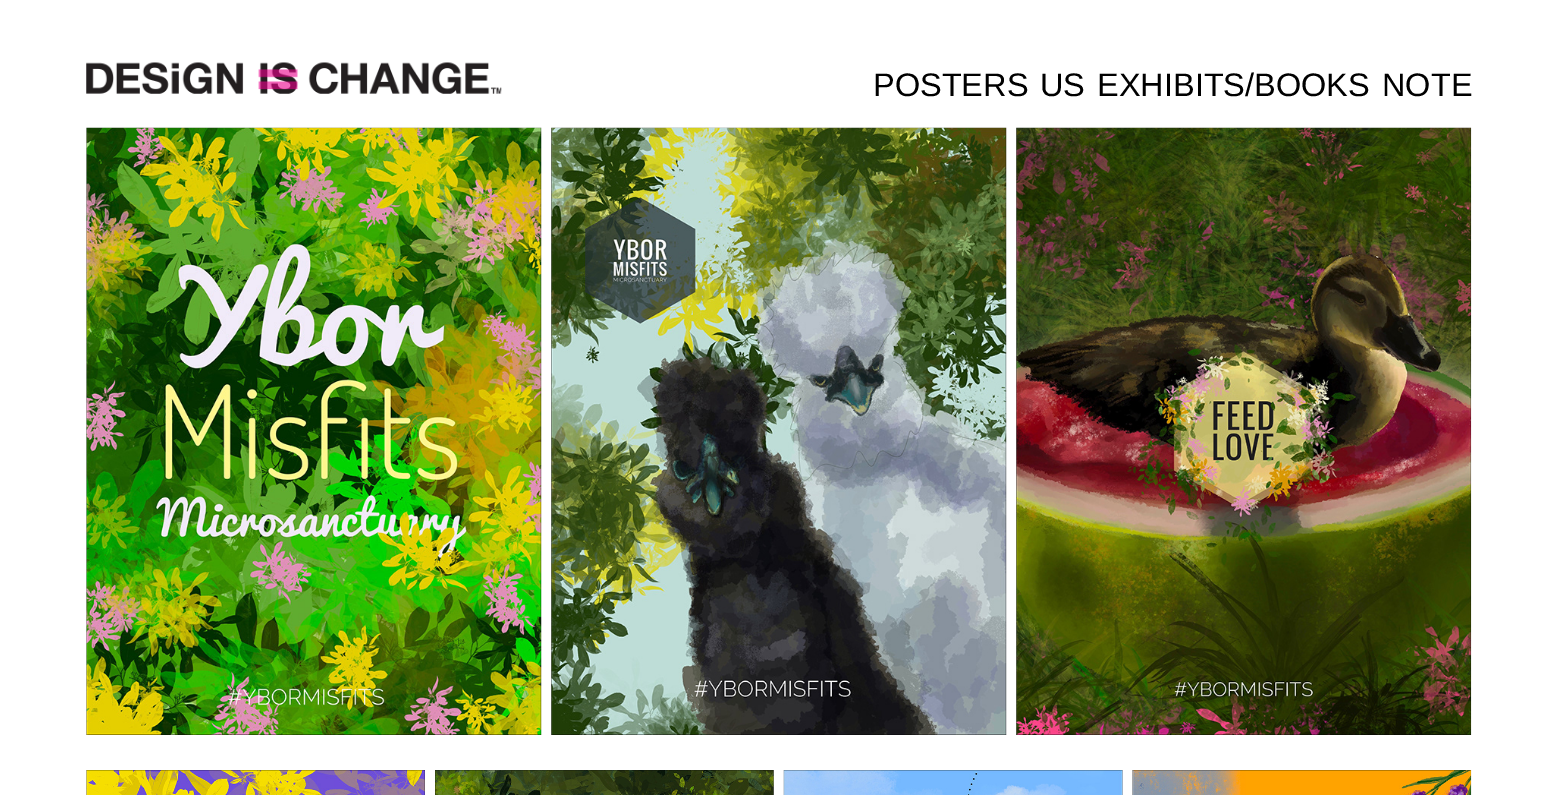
%!PS
<< /PageSize [1557 795] >> setpagedevice
/C { dup -16 bitshift 255 div exch dup -8 bitshift 255 and 255 div exch 255 and 255 div setrgbcolor } def
/F { [ exch dup neg 0 0 3 -1 roll 0 0 ] selectfont } def
/T { moveto show } def
/R { rectfill } def
/I { 5 dict begin { /h /w /y /x /name } { exch def } forall
  gsave x y translate w h scale
  w h 8 [w 0 0 h 0 0] name (r) file false 3 colorimage grestore end } def
0 795 translate 1 -1 scale
4 setmiterlimit
16#FFFFFF C
0 0 1557 795 R
(1.rgb) 86 62 416 32 I
/LiberationSans-Regular 32.5 F
16#000000 C
(POSTERS) 873 96 T
(US) 1040 96 T
(EXHIBITS/BOOKS) 1097 96 T
(NOTE) 1382 96 T
(2.rgb) 86 127 456 608 I
(3.rgb) 551 127 456 608 I
(4.rgb) 1016 127 456 608 I
(5.rgb) 86 770 339 25 I
(6.rgb) 435 770 339 25 I
(7.rgb) 783 770 340 25 I
(8.rgb) 1132 770 340 25 I
showpage
